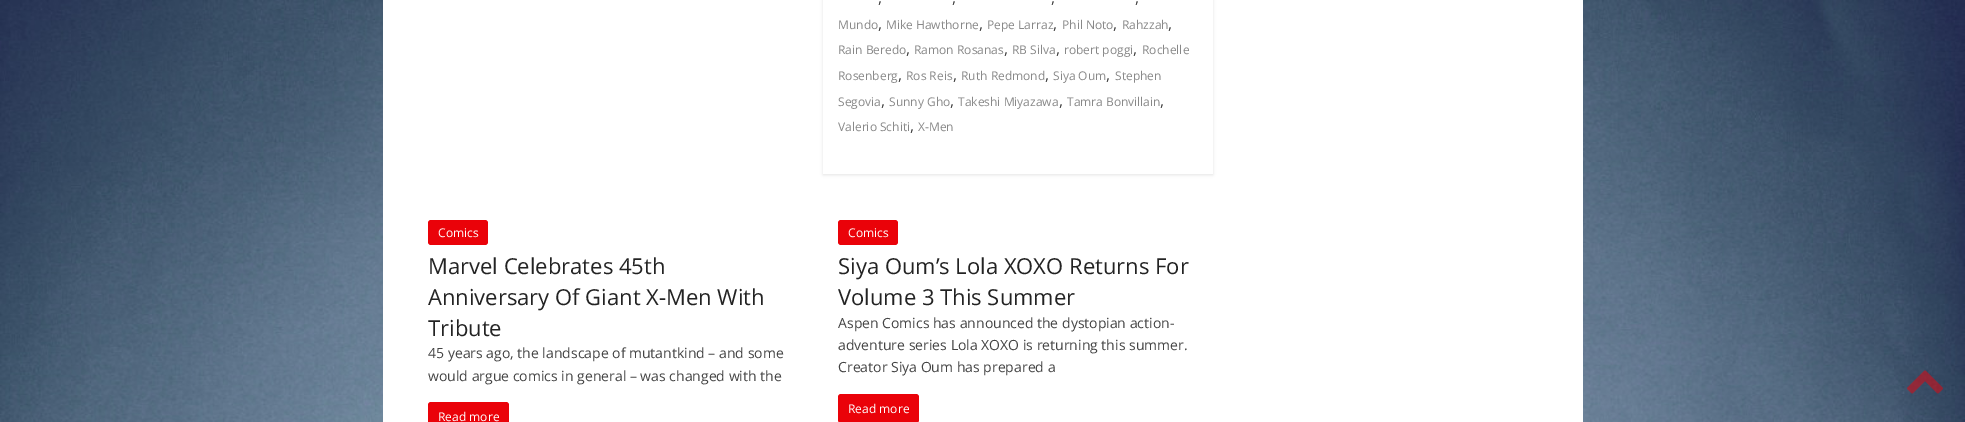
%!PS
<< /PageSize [1965 422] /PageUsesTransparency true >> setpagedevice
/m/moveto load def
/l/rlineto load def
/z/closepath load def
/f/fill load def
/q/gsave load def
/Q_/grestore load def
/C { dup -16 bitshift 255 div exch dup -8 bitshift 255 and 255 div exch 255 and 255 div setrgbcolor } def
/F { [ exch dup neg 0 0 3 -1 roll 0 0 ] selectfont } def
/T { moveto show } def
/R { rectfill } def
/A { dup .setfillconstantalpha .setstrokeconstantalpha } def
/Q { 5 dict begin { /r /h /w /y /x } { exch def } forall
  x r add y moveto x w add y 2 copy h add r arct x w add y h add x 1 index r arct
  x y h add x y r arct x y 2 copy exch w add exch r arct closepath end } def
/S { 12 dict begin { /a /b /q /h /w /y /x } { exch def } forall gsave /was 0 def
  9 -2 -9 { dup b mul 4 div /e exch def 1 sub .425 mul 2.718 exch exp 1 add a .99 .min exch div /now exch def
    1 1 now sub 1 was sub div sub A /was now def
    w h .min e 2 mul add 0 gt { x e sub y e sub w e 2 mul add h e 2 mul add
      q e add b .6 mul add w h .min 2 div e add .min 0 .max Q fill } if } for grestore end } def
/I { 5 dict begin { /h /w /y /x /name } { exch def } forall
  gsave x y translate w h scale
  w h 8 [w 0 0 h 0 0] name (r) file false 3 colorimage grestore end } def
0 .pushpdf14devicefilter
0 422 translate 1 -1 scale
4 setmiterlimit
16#FFFFFF C
0 0 1965 422 R
(1.rgb) 0 0 1965 422 I
383 0 1200 422 R
q
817 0 m 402 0 l 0 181 l -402 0 l z 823 -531 m 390 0 l 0 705 l -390 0 l z eoclip newpath
16#000000 C
823 -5 390 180 0 1.5 .1 S
Q_
/OpenSans-Regular 16 F
16#444444 C
(,) 878 3 T
(,) 952 3 T
(,) 1051 3 T
(,) 1135 3 T
/OpenSans-Regular 12 F
16#888888 C
(Mundo) 838 29 T
/OpenSans-Regular 16 F
16#444444 C
(,) 878 29 T
/OpenSans-Regular 12 F
16#888888 C
(Mike Hawthorne) 886 29 T
/OpenSans-Regular 16 F
16#444444 C
(,) 979 29 T
/OpenSans-Regular 12 F
16#888888 C
(Pepe Larraz) 987 29 T
/OpenSans-Regular 16 F
16#444444 C
(,) 1053 29 T
/OpenSans-Regular 12 F
16#888888 C
(Phil Noto) 1062 29 T
/OpenSans-Regular 16 F
16#444444 C
(,) 1113 29 T
/OpenSans-Regular 12 F
16#888888 C
(Rahzzah) 1122 29 T
/OpenSans-Regular 16 F
16#444444 C
(,) 1168 29 T
/OpenSans-Regular 12 F
16#888888 C
(Rain Beredo) 838 54 T
/OpenSans-Regular 16 F
16#444444 C
(,) 906 54 T
/OpenSans-Regular 12 F
16#888888 C
(Ramon Rosanas) 914 54 T
/OpenSans-Regular 16 F
16#444444 C
(,) 1004 54 T
/OpenSans-Regular 12 F
16#888888 C
(RB Silva) 1012 54 T
/OpenSans-Regular 16 F
16#444444 C
(,) 1056 54 T
/OpenSans-Regular 12 F
16#888888 C
(robert poggi) 1064 54 T
/OpenSans-Regular 16 F
16#444444 C
(,) 1133 54 T
/OpenSans-Regular 12 F
16#888888 C
(Rochelle) 1142 54 T
(Rosenberg) 838 80 T
/OpenSans-Regular 16 F
16#444444 C
(,) 898 80 T
/OpenSans-Regular 12 F
16#888888 C
(Ros Reis) 906 80 T
/OpenSans-Regular 16 F
16#444444 C
(,) 953 80 T
/OpenSans-Regular 12 F
16#888888 C
(Ruth Redmond) 961 80 T
/OpenSans-Regular 16 F
16#444444 C
(,) 1045 80 T
/OpenSans-Regular 12 F
16#888888 C
(Siya Oum) 1053 80 T
/OpenSans-Regular 16 F
16#444444 C
(,) 1106 80 T
/OpenSans-Regular 12 F
16#888888 C
(Stephen) 1115 80 T
(Segovia) 838 106 T
/OpenSans-Regular 16 F
16#444444 C
(,) 881 106 T
/OpenSans-Regular 12 F
16#888888 C
(Sunny Gho) 889 106 T
/OpenSans-Regular 16 F
16#444444 C
(,) 950 106 T
/OpenSans-Regular 12 F
16#888888 C
(Takeshi Miyazawa) 958 106 T
/OpenSans-Regular 16 F
16#444444 C
(,) 1059 106 T
/OpenSans-Regular 12 F
16#888888 C
(Tamra Bonvillain) 1067 106 T
/OpenSans-Regular 16 F
16#444444 C
(,) 1160 106 T
/OpenSans-Regular 12 F
16#888888 C
(Valerio Schiti) 838 131 T
/OpenSans-Regular 16 F
16#444444 C
(,) 910 131 T
/OpenSans-Regular 12 F
16#888888 C
(X-Men) 918 131 T
16#EA0209 C
428 220 60 25 3 Q f
16#FFFFFF C
(Comics) 438 237 T
/OpenSans-Regular 22 F
16#232323 C
(Marvel Celebrates 45th) 428 274 T
(Anniversary Of Giant X-Men With) 428 305 T
(Tribute) 428 336 T
/OpenSans-Regular 14 F
16#444444 C
(45 years ago, the landscape of mutantkind – and some) 428 358 T
(would argue comics in general – was changed with the) 428 381 T
16#EA0209 C
428 402 81 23 3 Q f
/OpenSans-Regular 12 F
16#FFFFFF C
(Read more) 438 421 T
16#EA0209 C
838 220 60 25 3 Q f
16#FFFFFF C
(Comics) 848 237 T
/OpenSans-Regular 22 F
16#232323 C
(Siya Oum’s Lola XOXO Returns For) 838 274 T
(Volume 3 This Summer) 838 305 T
/OpenSans-Regular 14 F
16#444444 C
(Aspen Comics has announced the dystopian action-) 838 328 T
(adventure series Lola XOXO is returning this summer.) 838 350 T
(Creator Siya Oum has prepared a) 838 372 T
16#EA0209 C
838 394 81 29 3 Q f
/OpenSans-Regular 12 F
16#FFFFFF C
(Read more) 848 413 T
(2.rgb) 1907 370 36 24 I
.poppdf14devicefilter showpage
